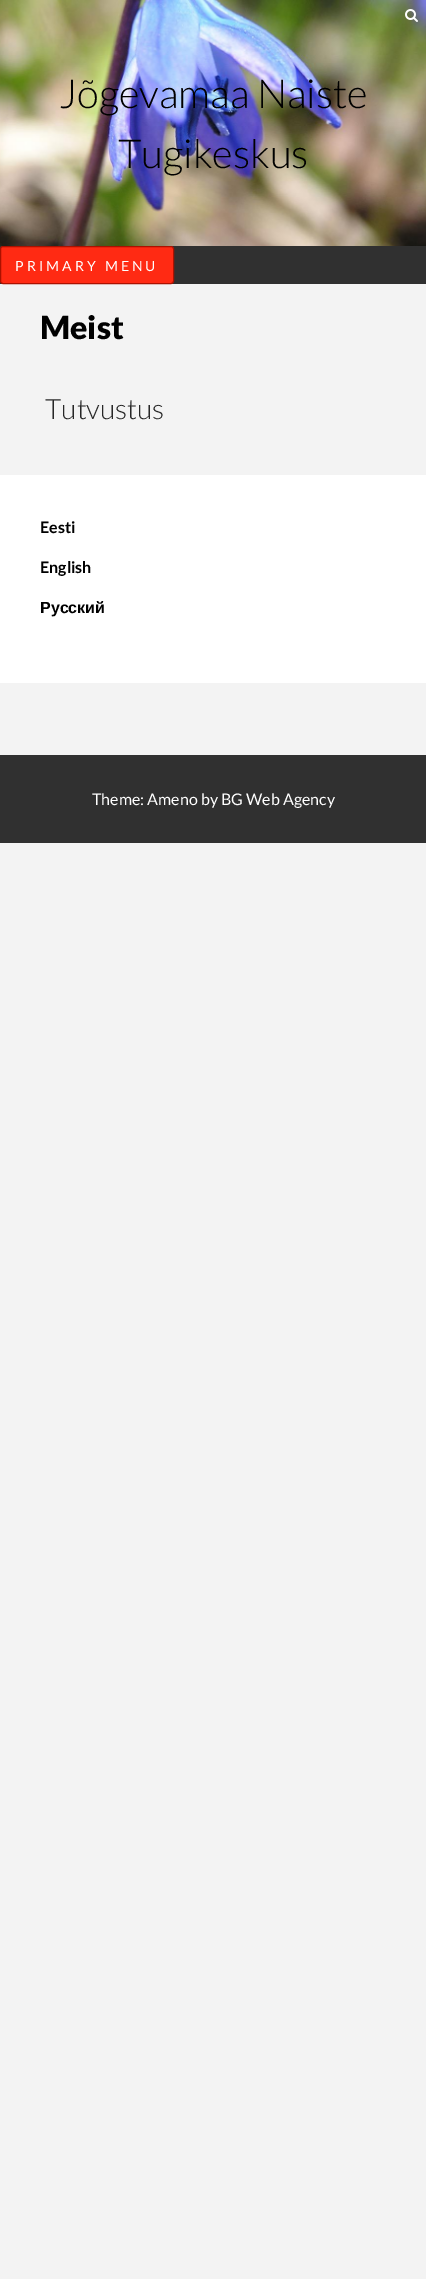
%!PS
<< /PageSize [426 2279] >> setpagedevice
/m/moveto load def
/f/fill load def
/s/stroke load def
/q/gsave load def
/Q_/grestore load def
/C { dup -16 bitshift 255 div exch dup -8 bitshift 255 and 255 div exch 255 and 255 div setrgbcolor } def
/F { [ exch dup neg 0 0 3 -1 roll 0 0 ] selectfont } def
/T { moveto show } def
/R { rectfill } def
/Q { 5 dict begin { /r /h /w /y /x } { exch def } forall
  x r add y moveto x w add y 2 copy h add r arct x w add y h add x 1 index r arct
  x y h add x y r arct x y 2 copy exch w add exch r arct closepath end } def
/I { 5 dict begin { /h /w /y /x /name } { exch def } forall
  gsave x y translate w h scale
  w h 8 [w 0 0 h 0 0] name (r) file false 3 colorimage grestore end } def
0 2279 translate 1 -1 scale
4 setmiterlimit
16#F3F3F3 C
0 0 426 2279 R
(1.rgb) 0 0 426 246 I
(2.rgb) 405 9 13 13 I
/Lato-Light 40 F
16#000000 C
(Jõgevamaa Naiste) 59 108 T
(Tugikeskus) 118 168 T
16#303030 C
0 246 426 38 R
16#FF2A13 C
.5 246.5 173 37 2.5 Q q f Q_
16#AC1100 C
s
/Lato-Regular 14 F
16#FFFFFF C
15 271 m 3.1 0 (PRIMARY MENU) ashow
/Lato-Black 32 F
16#000000 C
(Meist) 40 339 T
/Lato-Light 28 F
16#272727 C
(Tutvustus) 45 419 T
16#FFFFFF C
0 475 426 208 R
/Lato-Bold 16 F
16#000000 C
(Eesti) 40 533 T
(English) 40 573 T
/LiberationSans-Bold 16 F
(Русский) 40 613 T
16#303030 C
0 755 426 88 R
/Lato-Regular 16 F
16#FFFFFF C
(Theme: Ameno by BG Web Agency) 92 805 T
showpage
